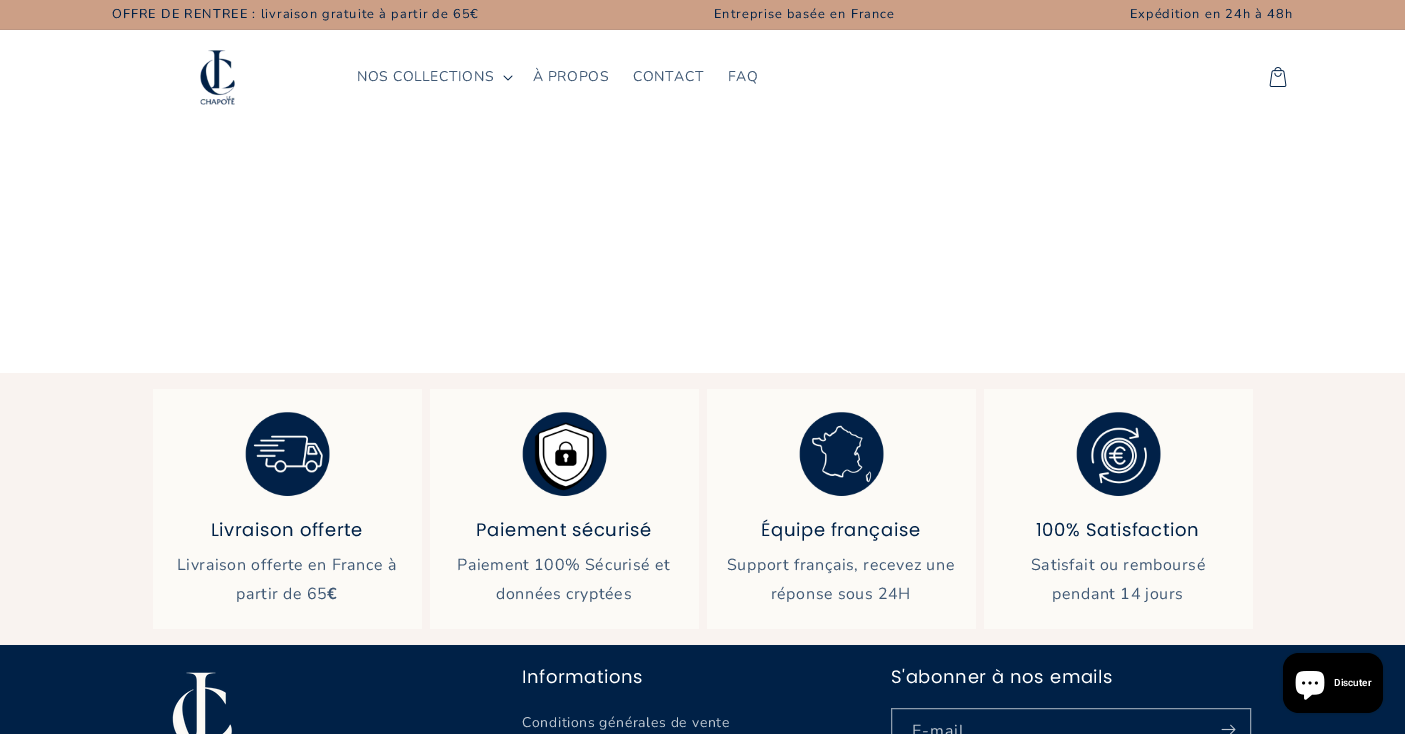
%!PS
<< /PageSize [1405 734] /PageUsesTransparency true >> setpagedevice
/m/moveto load def
/f/fill load def
/C { dup -16 bitshift 255 div exch dup -8 bitshift 255 and 255 div exch 255 and 255 div setrgbcolor } def
/F { [ exch dup neg 0 0 3 -1 roll 0 0 ] selectfont } def
/T { moveto show } def
/R { rectfill } def
/A { dup .setfillconstantalpha .setstrokeconstantalpha } def
/Q { 5 dict begin { /r /h /w /y /x } { exch def } forall
  x r add y moveto x w add y 2 copy h add r arct x w add y h add x 1 index r arct
  x y h add x y r arct x y 2 copy exch w add exch r arct closepath end } def
/S { 12 dict begin { /a /b /q /h /w /y /x } { exch def } forall gsave /was 0 def
  9 -2 -9 { dup b mul 4 div /e exch def 1 sub .425 mul 2.718 exch exp 1 add a .99 .min exch div /now exch def
    1 1 now sub 1 was sub div sub A /was now def
    w h .min e 2 mul add 0 gt { x e sub y e sub w e 2 mul add h e 2 mul add
      q e add b .6 mul add w h .min 2 div e add .min 0 .max Q fill } if } for grestore end } def
/I { 5 dict begin { /h /w /y /x /name } { exch def } forall
  gsave x y translate w h scale
  w h 8 [w 0 0 h 0 0] name (r) file false 3 colorimage grestore end } def
0 .pushpdf14devicefilter
0 734 translate 1 -1 scale
4 setmiterlimit
16#FFFFFF C
0 0 1405 734 R
16#CC9F86 C
0 0 1405 29 R
16#BC9581 C
0 29 1405 1 R
/Nunito-Regular 12.8 F
16#002147 C
112 18 m 1 0 (OFFRE DE RENTREE : livraison gratuite à partir de 65€) ashow
714 18 m 1 0 (Entreprise basée en France) ashow
1130 18 m 1 0 (Expédition en 24h à 48h) ashow
(1.rgb) 200 50 35 55 I
/Nunito-Regular 14 F
16#405975 C
357 81 m .6 0 (NOS COLLECTIONS) ashow
(2.rgb) 503 75 10 6 I
533 81 m .6 0 (À PROPOS) ashow
633 81 m .6 0 (CONTACT) ashow
728 81 m .6 0 (FAQ) ashow
(3.rgb) 1269 67 18 20 I
16#F9F3F0 C
0 373 1405 272 R
16#FCFAF6 C
153 389 269 240 R
(4.rgb) 245 412 85 84 I
/Poppins-Regular 18 F
16#002147 C
211 536 m .6 0 (Livraison offerte) ashow
/Nunito-Regular 16 F
16#405975 C
177 570 m .6 0 (Livraison offerte en France à) ashow
236 599 m .6 0 (partir de 65) ashow
/Nunito-Bold 16 F
327 599 m .6 0 (€) ashow
16#FCFAF6 C
430 389 269 240 R
(5.rgb) 522 412 85 84 I
/Poppins-Regular 18 F
16#002147 C
476 536 m .6 0 (Paiement sécurisé) ashow
/Nunito-Regular 16 F
16#405975 C
457 570 m .6 0 (Paiement 100% Sécurisé et) ashow
496 599 m .6 0 (données cryptées) ashow
16#FCFAF6 C
707 389 269 240 R
(6.rgb) 799 412 85 84 I
/Poppins-Regular 18 F
16#002147 C
761 536 m .6 0 (Équipe française) ashow
/Nunito-Regular 16 F
16#405975 C
727 570 m .6 0 (Support français, recevez une) ashow
771 599 m .6 0 (réponse sous 24H) ashow
16#FCFAF6 C
984 389 269 240 R
(7.rgb) 1076 412 85 84 I
/Poppins-Regular 18 F
16#002147 C
1036 536 m .6 0 (100% Satisfaction) ashow
/Nunito-Regular 16 F
16#405975 C
1031 570 m .6 0 (Satisfait ou remboursé) ashow
1052 599 m .6 0 (pendant 14 jours) ashow
16#002147 C
0 645 1405 89 R
(8.rgb) 172 672 60 62 I
/Poppins-Regular 18 F
16#FFFFFF C
522 683 m .6 0 (Informations) ashow
/Nunito-Regular 14 F
16#BFC8D1 C
522 727 m .6 0 (Conditions générales de vente) ashow
/Poppins-Regular 18 F
16#FFFFFF C
891 683 m .6 0 (S'abonner à nos emails) ashow
16#8C9BAC C
891.5 708.5 359 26 rectstroke
/Nunito-Regular 16 F
16#BFC8D1 C
912 736 m 1 0 (E-mail) ashow
(9.rgb) 1221 724 15 10 I
16#000000 C
1283 653 100 60 16 2.5 .15 S
1283 653 100 60 16 Q f
(10.rgb) 1295 671 30 29 I
/Roboto-SemiBold 10 F
16#FFFFFF C
(Discuter) 1334 686 T
.poppdf14devicefilter showpage
